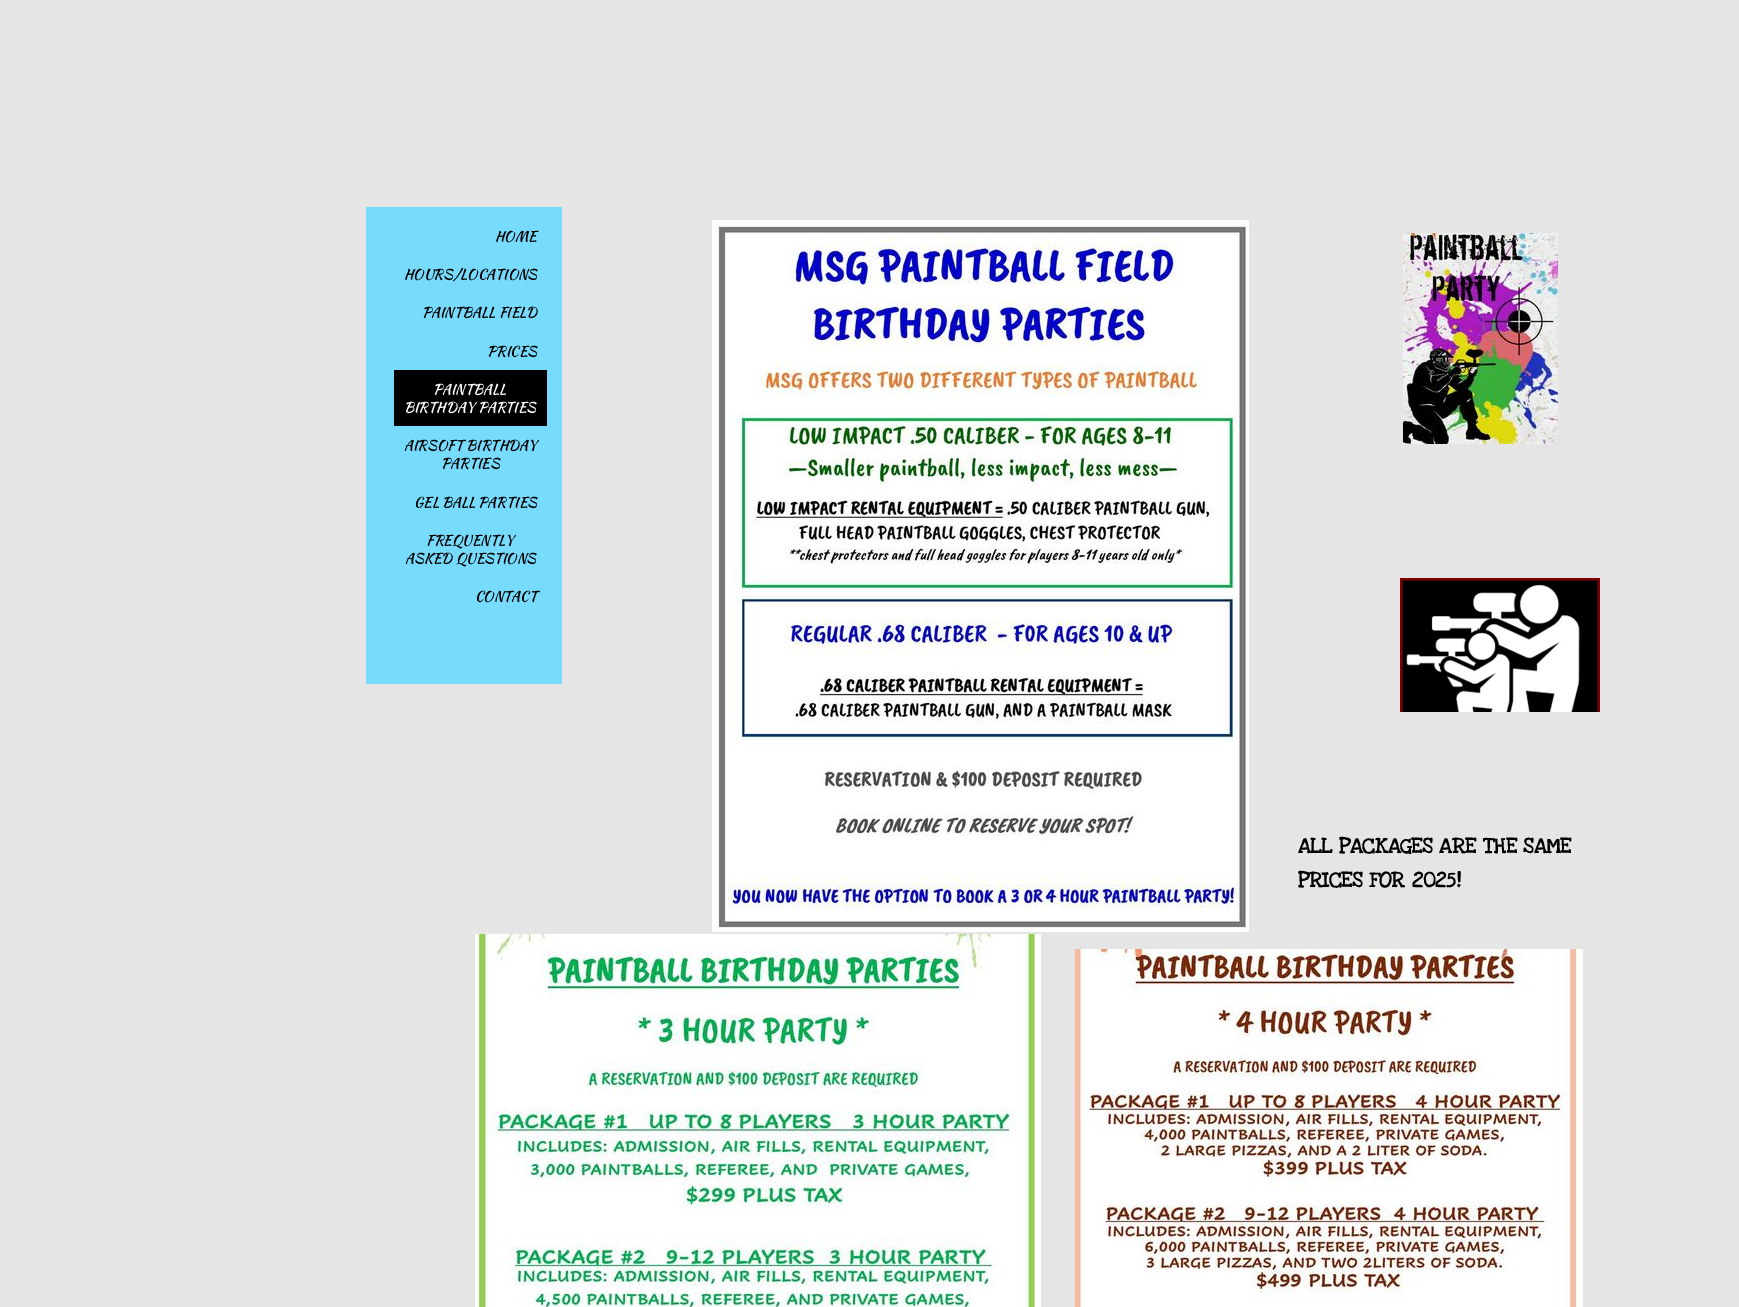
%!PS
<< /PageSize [1739 1307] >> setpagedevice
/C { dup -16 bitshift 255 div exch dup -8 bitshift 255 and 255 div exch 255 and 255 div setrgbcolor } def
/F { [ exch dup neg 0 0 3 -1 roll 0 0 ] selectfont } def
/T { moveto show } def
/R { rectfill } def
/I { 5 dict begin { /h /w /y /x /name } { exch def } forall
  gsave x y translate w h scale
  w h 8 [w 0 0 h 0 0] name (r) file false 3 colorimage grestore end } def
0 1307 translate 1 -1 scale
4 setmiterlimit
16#E5E5E5 C
0 0 1739 1307 R
16#77DBFD C
366 207 196 477 R
(1.rgb) 712 220 537 712 I
/KaushanScript-Regular 14 F
16#000000 C
(HOME) 495 241 T
(HOURS/LOCATIONS) 404 279 T
(PAINTBALL FIELD) 422 317 T
(PRICES) 487 356 T
394 370 153 56 R
16#FFFFFF C
(PAINTBALL) 433 394 T
(BIRTHDAY PARTIES) 404 412 T
16#000000 C
(AIRSOFT BIRTHDAY) 404 450 T
(PARTIES) 441 468 T
(GEL BALL PARTIES) 414 507 T
(FREQUENTLY) 426 545 T
(ASKED QUESTIONS) 405 563 T
(CONTACT) 475 601 T
(2.rgb) 1403 233 155 211 I
(3.rgb) 1400 578 200 134 I
/LoveYaLikeASister-Bold 22 F
(ALL PACKAGES ARE THE SAME) 1298 853 T
(PRICES FOR 2025!) 1298 887 T
(4.rgb) 475 934 566 373 I
(5.rgb) 1075 949 508 358 I
showpage
